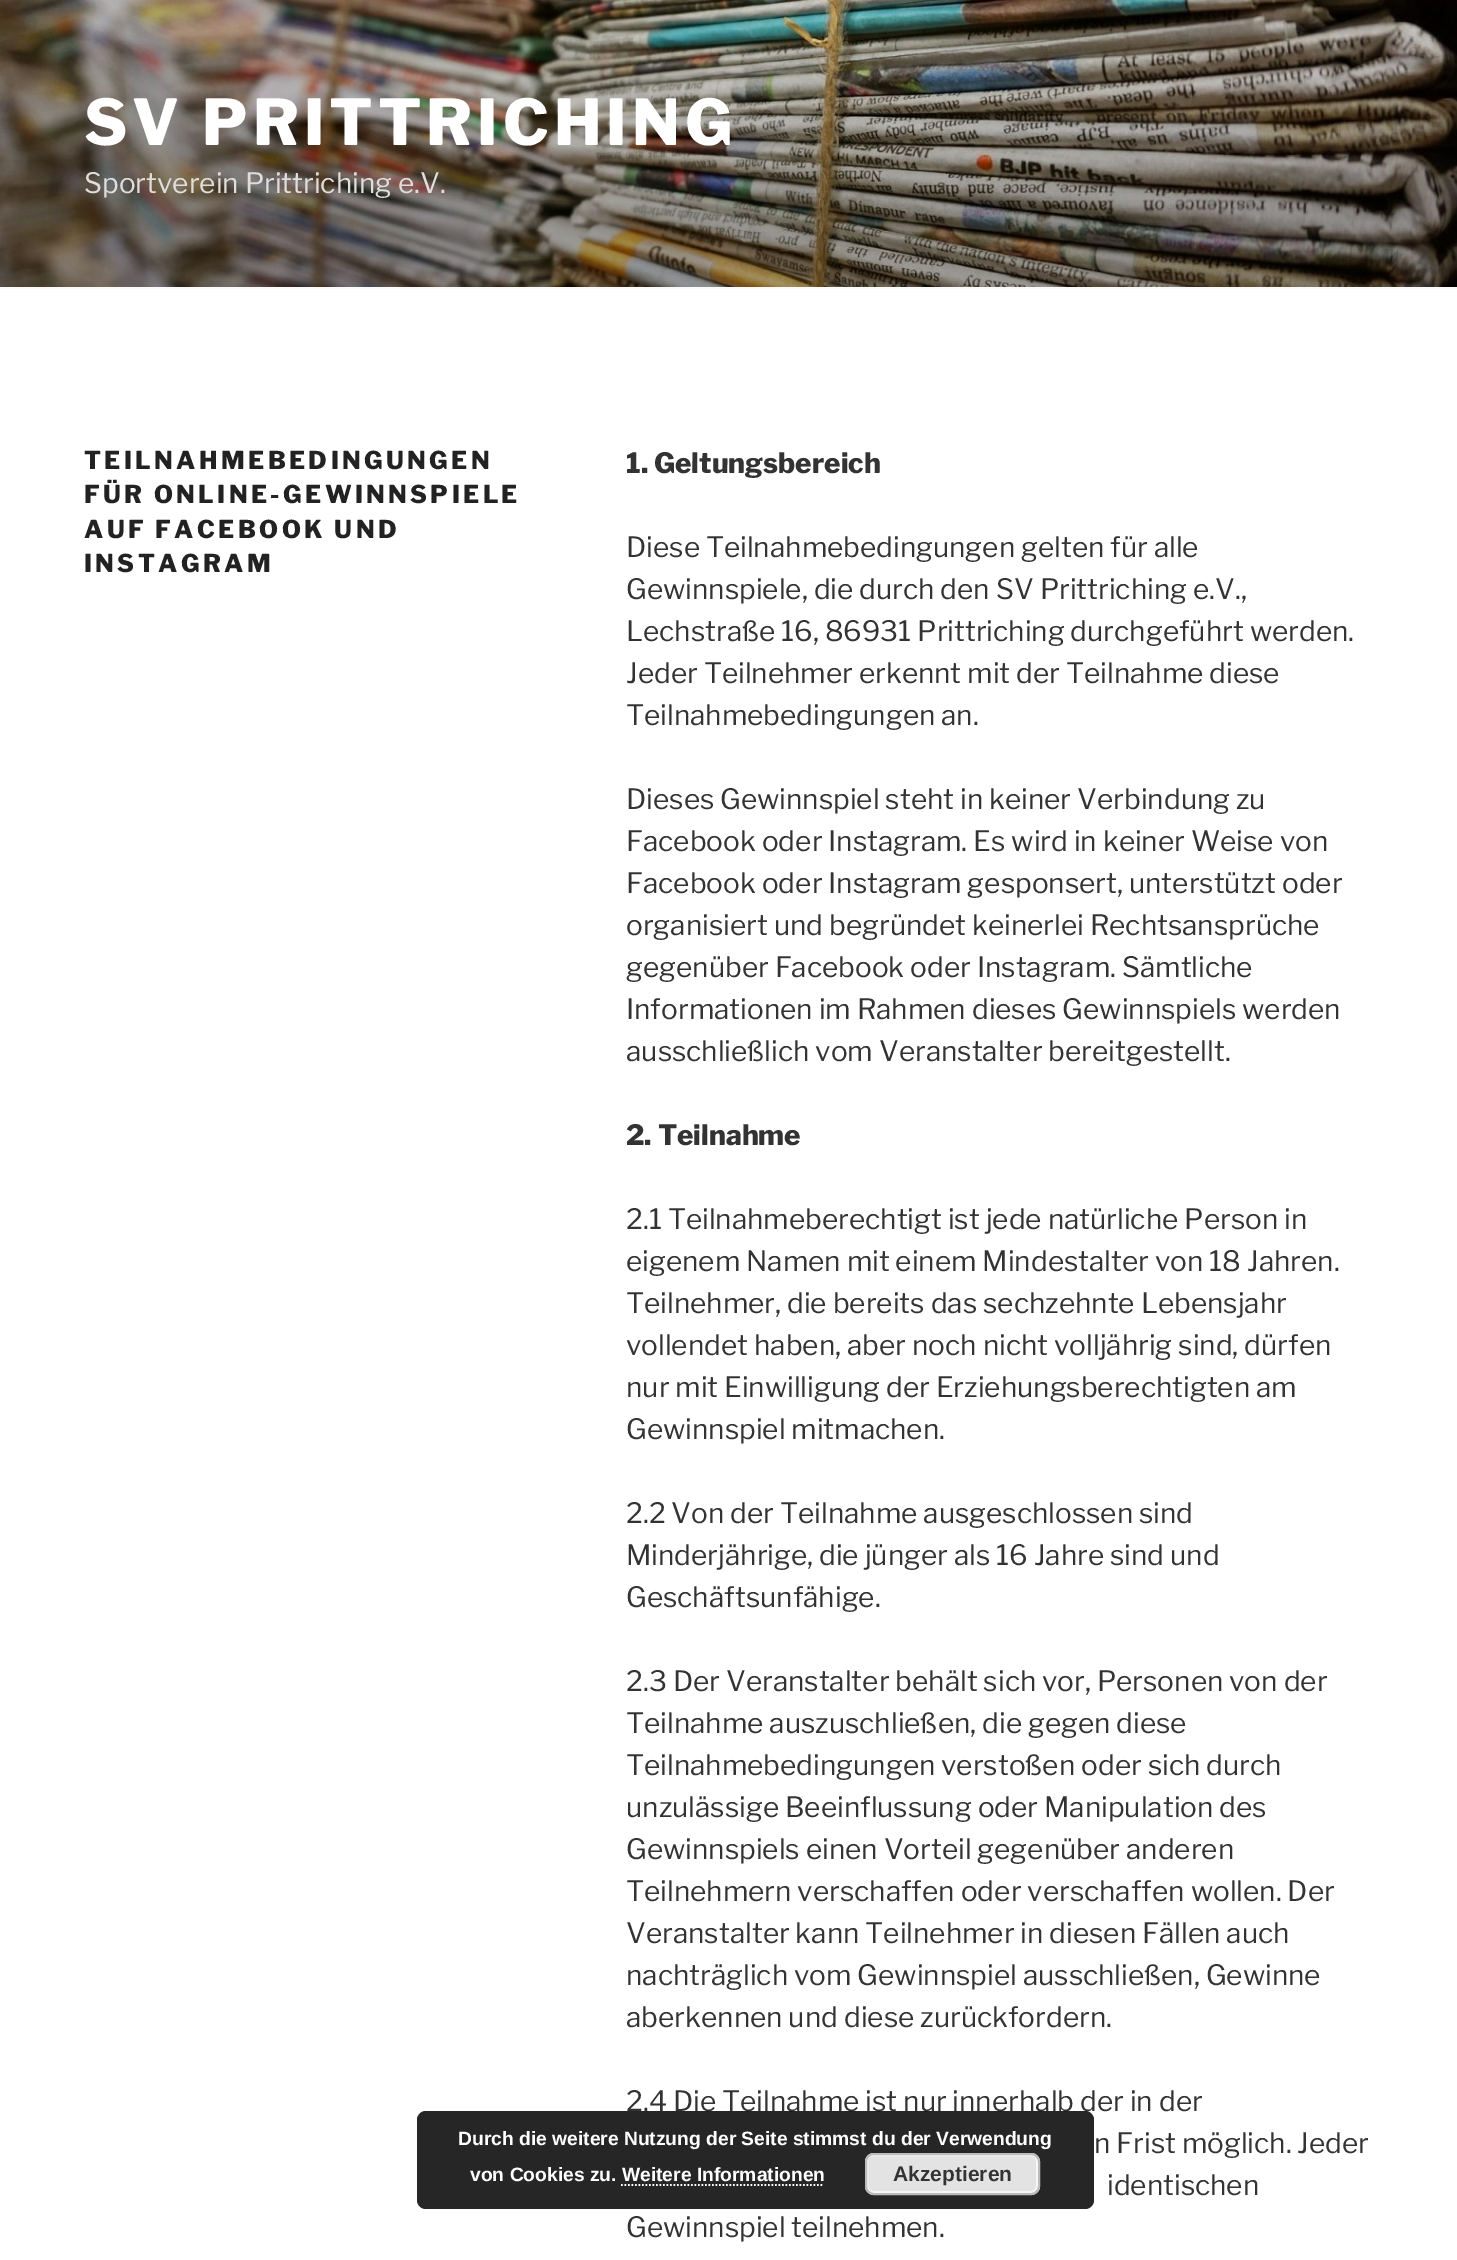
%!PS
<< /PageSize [1457 2260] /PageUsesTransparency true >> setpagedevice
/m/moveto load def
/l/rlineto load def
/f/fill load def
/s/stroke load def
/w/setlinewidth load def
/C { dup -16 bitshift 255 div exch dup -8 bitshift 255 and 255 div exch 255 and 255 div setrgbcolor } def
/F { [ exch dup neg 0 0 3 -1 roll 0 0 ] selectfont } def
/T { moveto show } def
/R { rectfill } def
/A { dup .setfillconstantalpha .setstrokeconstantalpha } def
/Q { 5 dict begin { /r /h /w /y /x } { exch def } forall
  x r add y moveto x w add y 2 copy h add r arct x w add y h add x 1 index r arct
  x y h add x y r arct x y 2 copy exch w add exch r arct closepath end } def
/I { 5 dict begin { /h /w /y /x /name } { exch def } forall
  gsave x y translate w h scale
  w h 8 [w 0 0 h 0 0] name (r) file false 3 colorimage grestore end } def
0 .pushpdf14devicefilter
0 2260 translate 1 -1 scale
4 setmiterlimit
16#FFFFFF C
0 0 1457 2260 R
16#FAFAFA C
0 287 1457 2 R
(1.rgb) 0 0 1457 287 I
/LibreFranklin-Thin 63 F
16#FFFFFF C
84 145 m 5 0 (SV PRITTRICHING) ashow
/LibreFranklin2-Thin 28 F
16#E0DEDC C
(Sportverein Prittriching e.V.) 84 193 T
/LibreFranklin-Thin 24.5 F
16#222222 C
84 469 m 3.4 0 (TEILNAHMEBEDINGUNGEN) ashow
84 503 m 3.4 0 (FÜR ONLINE-GEWINNSPIELE) ashow
84 538 m 3.4 0 (AUF FACEBOOK UND) ashow
84 572 m 3.4 0 (INSTAGRAM) ashow
/LibreFranklin-Thin 28 F
16#333333 C
(1. Geltungsbereich) 626 473 T
/LibreFranklin2-Thin 28 F
(Diese Teilnahmebedingungen gelten für alle) 626 557 T
(Gewinnspiele, die durch den SV Prittriching e.V.,) 626 599 T
(Lechstraße 16, 86931 Prittriching durchgeführt werden.) 626 641 T
(Jeder Teilnehmer erkennt mit der Teilnahme diese) 626 683 T
(Teilnahmebedingungen an.) 626 725 T
(Dieses Gewinnspiel steht in keiner Verbindung zu) 626 809 T
(Facebook oder Instagram. Es wird in keiner Weise von) 626 851 T
(Facebook oder Instagram gesponsert, unterstützt oder) 626 893 T
(organisiert und begründet keinerlei Rechtsansprüche) 626 935 T
(gegenüber Facebook oder Instagram. Sämtliche) 626 977 T
(Informationen im Rahmen dieses Gewinnspiels werden) 626 1019 T
(ausschließlich vom Veranstalter bereitgestellt.) 626 1061 T
/LibreFranklin-Thin 28 F
(2. Teilnahme) 626 1145 T
/LibreFranklin2-Thin 28 F
(2.1 Teilnahmeberechtigt ist jede natürliche Person in) 626 1229 T
(eigenem Namen mit einem Mindestalter von 18 Jahren.) 626 1271 T
(Teilnehmer, die bereits das sechzehnte Lebensjahr) 626 1313 T
(vollendet haben, aber noch nicht volljährig sind, dürfen) 626 1355 T
(nur mit Einwilligung der Erziehungsberechtigten am) 626 1397 T
(Gewinnspiel mitmachen.) 626 1439 T
(2.2 Von der Teilnahme ausgeschlossen sind) 626 1523 T
(Minderjährige, die jünger als 16 Jahre sind und) 626 1565 T
(Geschäftsunfähige.) 626 1607 T
(2.3 Der Veranstalter behält sich vor, Personen von der) 626 1691 T
(Teilnahme auszuschließen, die gegen diese) 626 1733 T
(Teilnahmebedingungen verstoßen oder sich durch) 626 1775 T
(unzulässige Beeinflussung oder Manipulation des) 626 1817 T
(Gewinnspiels einen Vorteil gegenüber anderen) 626 1859 T
(Teilnehmern verschaffen oder verschaffen wollen. Der) 626 1901 T
(Veranstalter kann Teilnehmer in diesen Fällen auch) 626 1943 T
(nachträglich vom Gewinnspiel ausschließen, Gewinne) 626 1985 T
(aberkennen und diese zurückfordern.) 626 2027 T
(2.4 Die Teilnahme ist nur innerhalb der in der) 626 2111 T
(n Frist möglich. Jeder) 1094 2153 T
(identischen) 1107 2195 T
(Gewinnspiel teilnehmen.) 626 2237 T
0.85 A
16#000000 C
417 2111 677 98 9 Q f
/LiberationSans-Bold 19.25 F
1 A
16#FFFFFF C
(Durch die weitere Nutzung der Seite stimmst du der Verwendung) 458 2145 T
(von Cookies zu. Weitere Informationen) 470 2181 T
16#E3E3E3 C
865 2153 175 42 9 Q f
16#F6F6F6 C
2 w
867 2155 170 37 6 Q s
16#BBBBBB C
866 2154 173 40 8 Q s
/LiberationSans-Bold 21 F
16#333333 C
(Akzeptieren) 893 2181 T
16#FFFFFF C
1.8 w
[1.75 1.75] 0 setdash
621 2185 m 203 0 l s
.poppdf14devicefilter showpage
